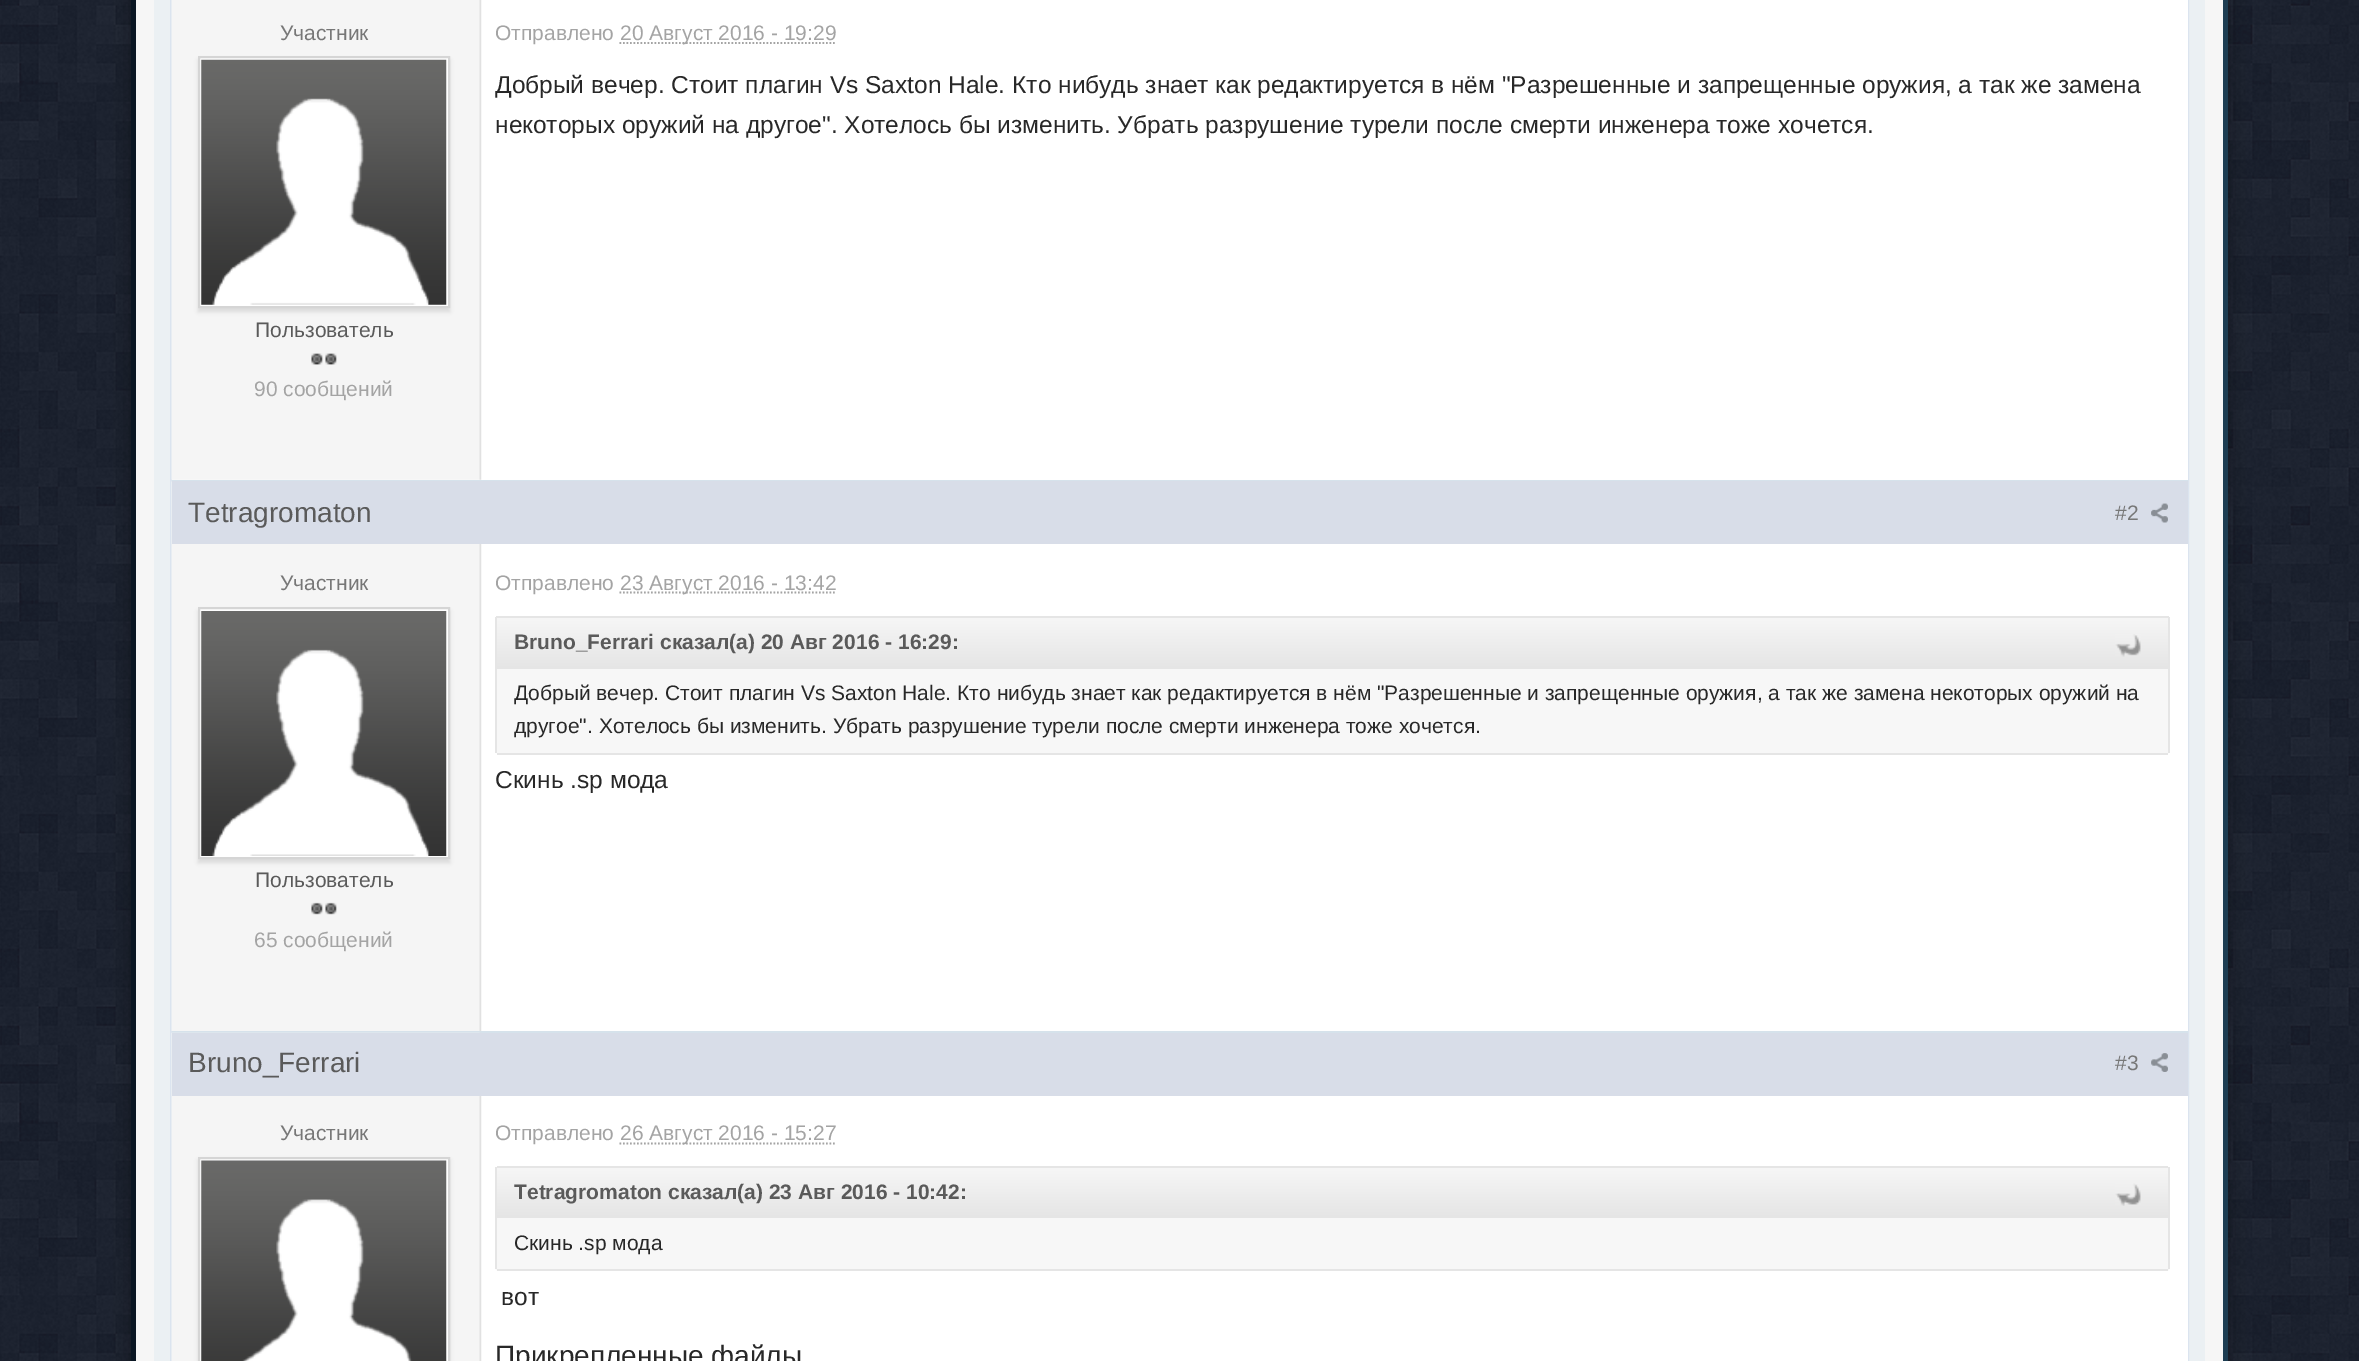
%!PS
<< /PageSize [2359 1361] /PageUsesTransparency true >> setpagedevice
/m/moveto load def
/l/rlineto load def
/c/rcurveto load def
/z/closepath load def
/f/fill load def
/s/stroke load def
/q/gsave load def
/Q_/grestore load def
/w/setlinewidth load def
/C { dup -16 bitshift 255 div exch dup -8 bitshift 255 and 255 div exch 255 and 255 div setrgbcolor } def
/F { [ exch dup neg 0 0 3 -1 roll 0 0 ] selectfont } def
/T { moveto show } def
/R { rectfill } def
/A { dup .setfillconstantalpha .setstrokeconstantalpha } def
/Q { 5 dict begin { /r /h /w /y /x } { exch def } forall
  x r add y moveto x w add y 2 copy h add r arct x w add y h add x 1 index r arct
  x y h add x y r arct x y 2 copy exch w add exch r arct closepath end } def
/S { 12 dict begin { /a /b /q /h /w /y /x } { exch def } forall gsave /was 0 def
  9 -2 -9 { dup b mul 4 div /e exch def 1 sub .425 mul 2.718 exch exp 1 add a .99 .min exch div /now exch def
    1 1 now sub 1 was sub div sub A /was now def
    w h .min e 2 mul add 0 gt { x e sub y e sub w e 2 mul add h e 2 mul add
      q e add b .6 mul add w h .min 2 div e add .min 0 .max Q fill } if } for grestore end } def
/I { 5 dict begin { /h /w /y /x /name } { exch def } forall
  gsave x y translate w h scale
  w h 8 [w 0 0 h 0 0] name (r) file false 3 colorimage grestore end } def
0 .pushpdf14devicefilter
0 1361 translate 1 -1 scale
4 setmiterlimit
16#FFFFFF C
0 0 2359 1361 R
(1.rgb) 0 0 2359 1361 I
16#000000 C
131 -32 2097 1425 0 10.5 .3 S
16#F6F6F6 C
136 0 2087 1361 R
16#1D3D52 C
2223 0 5 1361 R
16#0A1623 C
131 0 5 1361 R
16#EBF0F3 C
154 0 2051 1361 R
16#DBE4EF C
2 w
171 -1 2017 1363 rectstroke
16#FFFFFF C
172 0 2016 480 R
16#D6E2EB C
172 480 2016 1 R
(2.rgb) 171 0 311 480 I
/LiberationSans-Regular 21 F
16#777777 C
(Участник) 280 40 T
16#000000 C
198 60 252 252 0 2 .1 S
16#FFFFFF C
199 57 m 250 0 l 0 250 l -250 0 l z q f Q_
16#D5D5D5 C
s
(3.rgb) 201 59 246 246 I
16#5A5A5A C
(Пользователь) 255 337 T
(4.rgb) 311 353 12 12 I
(4.rgb) 325 353 12 12 I
16#A4A4A4 C
(90 сообщений) 254 396 T
(Отправлено) 495 40 T
1.8 w
[1.75 1.75] 0 setdash
619.5 43 m 216.5 0 l s
(20 Август 2016 - 19:29) 620 40 T
/LiberationSans-Regular 24.5 F
16#282828 C
(Добрый вечер. Стоит плагин Vs Saxton Hale. Кто нибудь знает как редактируется в нём "Разрешенные и запрещенные оружия, а так же замена) 495 93 T
(некоторых оружий на другое". Хотелось бы изменить. Убрать разрушение турели после смерти инженера тоже хочется.) 495 133 T
16#FFFFFF C
481 544 1707 487 R
16#D6E2EB C
172 1031 2016 2 R
(5.rgb) 171 481 311 550 I
16#D8DDE8 C
172 481 2016 63 R
/LiberationSans-Regular 28 F
16#5A5A5A C
(Tetragromaton) 188 522 T
/LiberationSans-Regular 21 F
16#777777 C
(#2) 2115 520 T
(6.rgb) 2151 503 17 20 I
(Участник) 280 590 T
16#000000 C
198 611 252 252 0 2 .1 S
16#FFFFFF C
199 608 m 250 0 l 0 250 l -250 0 l z q f Q_
16#D5D5D5 C
2 w
[] 0 setdash
s
(7.rgb) 201 611 246 245 I
16#5A5A5A C
(Пользователь) 255 887 T
(8.rgb) 311 902 12 13 I
(8.rgb) 325 902 12 13 I
16#A4A4A4 C
(65 сообщений) 254 947 T
(Отправлено) 495 590 T
1.8 w
[1.75 1.75] 0 setdash
619.5 592.5 m 216.5 0 l s
(23 Август 2016 - 13:42) 620 590 T
q
499 616 m 1667 0 l 2 0 4 2 4 4 c 0 49 l -1675 0 l 0 -49 l 0 -2 2 -4 4 -4 c z clip newpath
q 495 616 m 1675 0 l 0 2 l -1675 0 l z clip newpath
<< /ShadingType 2 /ColorSpace /DeviceRGB /Coords [497 567 497 618] /Extend [true true] /Function << /FunctionType 2 /Domain [0 1] /C0 [.965 .965 .965] /C1 [.898 .898 .898] /N 1 >> >> shfill Q_
Q_
q 497 618 m 1671 0 l 0 51 l -1671 0 l z clip newpath
<< /ShadingType 2 /ColorSpace /DeviceRGB /Coords [497 618 497 669] /Extend [true true] /Function << /FunctionType 2 /Domain [0 1] /C0 [.965 .965 .965] /C1 [.898 .898 .898] /N 1 >> >> shfill Q_
16#E5E5E5 C
497 616 1671 1 R
2168 618 2 51 R
495 618 2 51 R
/LiberationSans-Bold 21 F
16#5A5A5A C
(Bruno_Ferrari сказал\(а\) 20 Авг 2016 - 16:29:) 514 649 T
(9.rgb) 2115 634 26 23 I
16#F7F7F7 C
495 669 m 1675 0 l 0 81 l 0 2 -2 4 -4 4 c -1667 0 l -2 0 -4 -2 -4 -4 c z f
16#E5E5E5 C
2168 669 2 84 R
497 753 1671 2 R
495 669 2 84 R
/LiberationSans-Regular 21 F
16#282828 C
(Добрый вечер. Стоит плагин Vs Saxton Hale. Кто нибудь знает как редактируется в нём "Разрешенные и запрещенные оружия, а так же замена некоторых оружий на) 514 700 T
(другое". Хотелось бы изменить. Убрать разрушение турели после смерти инженера тоже хочется.) 514 733 T
/LiberationSans-Regular 24.5 F
(Скинь .sp мода) 495 788 T
16#FFFFFF C
481 1096 1707 265 R
(10.rgb) 171 1032 311 329 I
16#D8DDE8 C
172 1033 2016 63 R
/LiberationSans-Regular 28 F
16#5A5A5A C
(Bruno_Ferrari) 188 1072 T
/LiberationSans-Regular 21 F
16#777777 C
(#3) 2115 1070 T
(11.rgb) 2151 1053 17 19 I
(Участник) 280 1140 T
16#000000 C
198 1160 252 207 0 2 .1 S
16#FFFFFF C
199 1158 m 250 0 l 0 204 l -250 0 l z q f Q_
16#D5D5D5 C
2 w
[] 0 setdash
s
(12.rgb) 201 1160 246 201 I
16#A4A4A4 C
(Отправлено) 495 1140 T
1.8 w
[1.75 1.75] 0 setdash
619.5 1143.5 m 216.5 0 l s
(26 Август 2016 - 15:27) 620 1140 T
q 497 1168 m 1671 0 l 0 50 l -1671 0 l z clip newpath
<< /ShadingType 2 /ColorSpace /DeviceRGB /Coords [497 1167 497 1218] /Extend [true true] /Function << /FunctionType 2 /Domain [0 1] /C0 [.965 .965 .965] /C1 [.898 .898 .898] /N 1 >> >> shfill Q_
16#E5E5E5 C
497 1166 1671 2 R
2168 1167 2 51 R
495 1167 2 51 R
/LiberationSans-Bold 21 F
16#5A5A5A C
(Tetragromaton сказал\(а\) 23 Авг 2016 - 10:42:) 514 1199 T
(13.rgb) 2115 1183 26 23 I
16#F7F7F7 C
495 1218 m 1675 0 l 0 49 l 0 2 -2 4 -4 4 c -1667 0 l -2 0 -4 -2 -4 -4 c z f
16#E5E5E5 C
2168 1218 2 51 R
497 1269 1671 2 R
495 1218 2 51 R
/LiberationSans-Regular 21 F
16#282828 C
(Скинь .sp мода) 514 1250 T
/LiberationSans-Regular 24.5 F
(вот) 501 1305 T
/LiberationSans-Regular 28 F
(Прикрепленные файлы) 495 1365 T
.poppdf14devicefilter showpage
